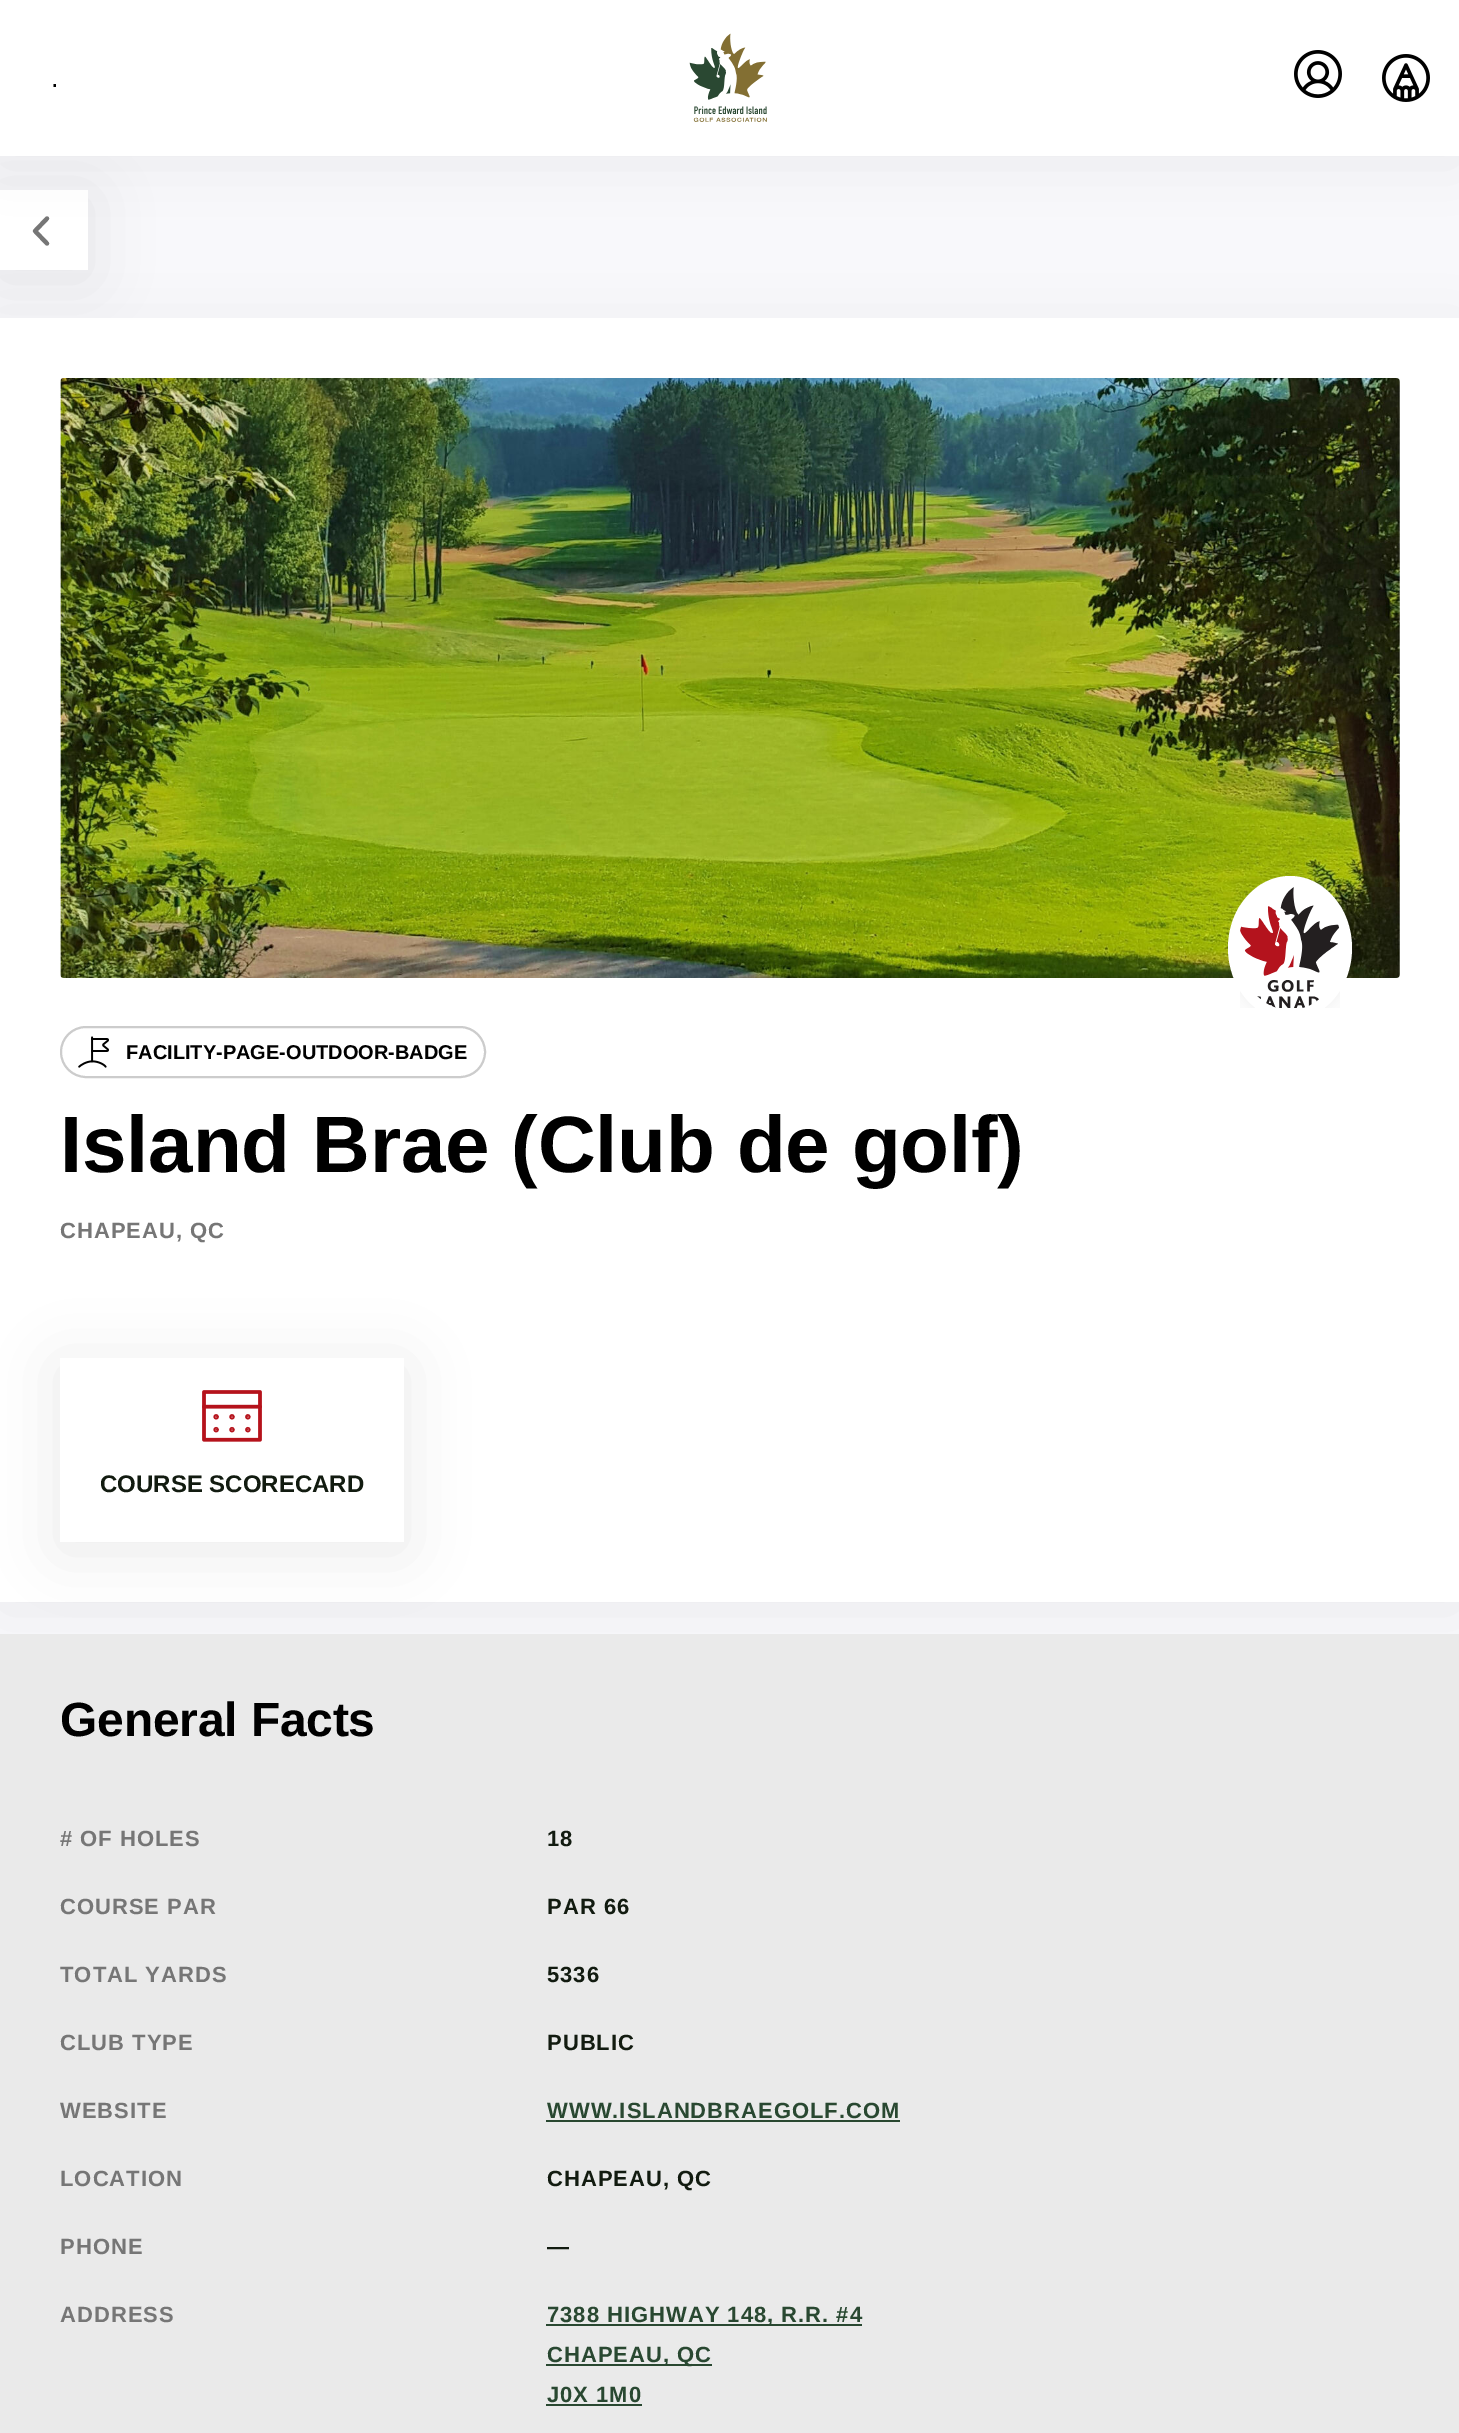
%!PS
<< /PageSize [1459 2433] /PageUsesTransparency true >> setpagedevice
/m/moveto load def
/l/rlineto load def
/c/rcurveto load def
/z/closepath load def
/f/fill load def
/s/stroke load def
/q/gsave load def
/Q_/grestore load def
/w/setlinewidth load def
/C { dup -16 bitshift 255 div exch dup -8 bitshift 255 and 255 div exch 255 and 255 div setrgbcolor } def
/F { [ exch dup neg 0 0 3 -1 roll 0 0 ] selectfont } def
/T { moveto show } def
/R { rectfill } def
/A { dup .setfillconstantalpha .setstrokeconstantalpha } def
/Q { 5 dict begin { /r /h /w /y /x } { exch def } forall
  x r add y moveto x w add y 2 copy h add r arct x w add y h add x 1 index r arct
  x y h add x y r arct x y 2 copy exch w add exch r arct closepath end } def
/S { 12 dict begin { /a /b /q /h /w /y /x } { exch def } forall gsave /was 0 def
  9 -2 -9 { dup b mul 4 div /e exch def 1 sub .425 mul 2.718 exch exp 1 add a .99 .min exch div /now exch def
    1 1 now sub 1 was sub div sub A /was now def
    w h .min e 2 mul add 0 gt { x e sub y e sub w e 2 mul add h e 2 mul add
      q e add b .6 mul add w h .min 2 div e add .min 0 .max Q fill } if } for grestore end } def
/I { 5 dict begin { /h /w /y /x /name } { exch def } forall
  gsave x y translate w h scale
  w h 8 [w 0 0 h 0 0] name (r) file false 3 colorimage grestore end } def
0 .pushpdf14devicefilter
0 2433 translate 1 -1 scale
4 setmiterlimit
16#F8F8FB C
0 0 1459 2433 R
16#5A5A5A C
0 198 88 80 0 30 .12 S
16#FFFFFF C
0 190 88 80 R
16#767676 C
4.2 w
1 setlinecap
1 setlinejoin
47 218.5 m -12 12.5 l 12 12.5 l s
16#000000 C
0 8 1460 156 0 30 .05 S
16#FFFFFF C
0 0 1459 156 R
/LiberationSans-Regular 27 F
16#000000 C
(.) 51 87 T
(1.rgb) 689 33 78 89 I
(2.rgb) 1294 50 48 48 I
(3.rgb) 1382 54 48 48 I
0 326 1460 1284 0 30 .05 S
16#FFFFFF C
0 318 1459 1284 R
(4.rgb) 60 378 1340 600 I
1290 876 m 34 0 62 32 62 72 c 0 40 -28 72 -62 72 c -34 0 -62 -32 -62 -72 c 0 -40 28 -72 62 -72 c z f
(5.rgb) 1240 887 100 121 I
16#CCCCCC C
2 w
0 setlinecap
0 setlinejoin
61 1027 424 50 25 Q s
(6.rgb) 78 1036 31 32 I
/LiberationSans-Bold 20 F
16#000000 C
(FACILITY-PAGE-OUTDOOR-BADGE) 126 1059 T
/LiberationSans-Bold 80 F
60 1172 m -.2 0 (Island Brae \(Club de golf\)) ashow
/LiberationSans-Bold 22 F
16#767676 C
60 1238 m 1 0 (CHAPEAU, QC) ashow
16#EAEAEA C
0 1634 1459 799 R
q
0 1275 m 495 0 l 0 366 l -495 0 l z 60 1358 m 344 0 l 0 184 l -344 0 l z eoclip newpath
16#5A5A5A C
60 1366 344 184 0 30 .12 S
Q_
(7.rgb) 202 1390 60 52 I
/LiberationSans-Bold 24 F
16#121B10 C
(COURSE SCORECARD) 100 1492 T
/LiberationSans-Bold 48 F
16#000000 C
60 1736 m -.2 0 (General Facts) ashow
/LiberationSans-Bold 22 F
16#767676 C
60 1846 m 1 0 (# OF HOLES) ashow
16#121B10 C
547 1846 m 1 0 (18) ashow
16#767676 C
60 1914 m 1 0 (COURSE PAR) ashow
16#121B10 C
547 1914 m 1 0 (PAR 66) ashow
16#767676 C
60 1982 m 1 0 (TOTAL YARDS) ashow
16#121B10 C
547 1982 m 1 0 (5336) ashow
16#767676 C
60 2050 m 1 0 (CLUB TYPE) ashow
16#121B10 C
547 2050 m 1 0 (PUBLIC) ashow
16#767676 C
60 2118 m 1 0 (WEBSITE) ashow
16#294831 C
547 2118 m 1 0 (WWW.ISLANDBRAEGOLF.COM) ashow
546 2120 354 2 R
16#767676 C
60 2186 m 1 0 (LOCATION) ashow
16#121B10 C
547 2186 m 1 0 (CHAPEAU, QC) ashow
16#767676 C
60 2254 m 1 0 (PHONE) ashow
16#121B10 C
547 2254 m 1 0 (—) ashow
16#767676 C
60 2322 m 1 0 (ADDRESS) ashow
16#294831 C
546 2324 316 2 R
547 2322 m 1 0 (7388 HIGHWAY 148, R.R. #4) ashow
546 2364 166 2 R
547 2362 m 1 0 (CHAPEAU, QC) ashow
547 2402 m 1 0 (J0X 1M0) ashow
546 2404 96 2 R
.poppdf14devicefilter showpage
